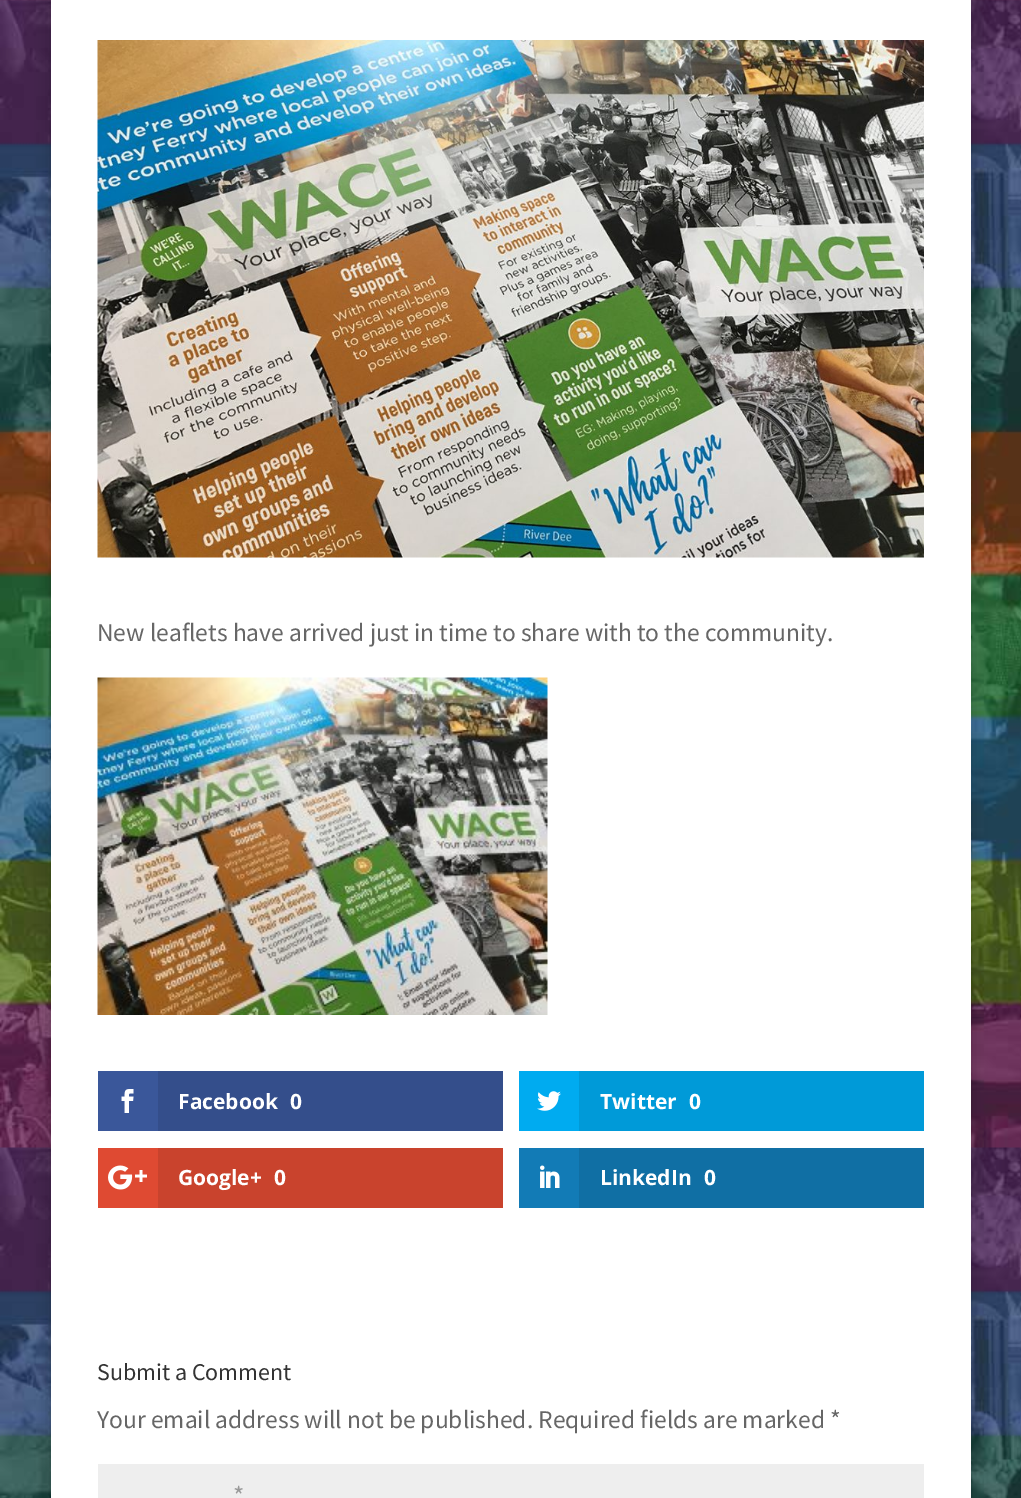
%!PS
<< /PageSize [1021 1498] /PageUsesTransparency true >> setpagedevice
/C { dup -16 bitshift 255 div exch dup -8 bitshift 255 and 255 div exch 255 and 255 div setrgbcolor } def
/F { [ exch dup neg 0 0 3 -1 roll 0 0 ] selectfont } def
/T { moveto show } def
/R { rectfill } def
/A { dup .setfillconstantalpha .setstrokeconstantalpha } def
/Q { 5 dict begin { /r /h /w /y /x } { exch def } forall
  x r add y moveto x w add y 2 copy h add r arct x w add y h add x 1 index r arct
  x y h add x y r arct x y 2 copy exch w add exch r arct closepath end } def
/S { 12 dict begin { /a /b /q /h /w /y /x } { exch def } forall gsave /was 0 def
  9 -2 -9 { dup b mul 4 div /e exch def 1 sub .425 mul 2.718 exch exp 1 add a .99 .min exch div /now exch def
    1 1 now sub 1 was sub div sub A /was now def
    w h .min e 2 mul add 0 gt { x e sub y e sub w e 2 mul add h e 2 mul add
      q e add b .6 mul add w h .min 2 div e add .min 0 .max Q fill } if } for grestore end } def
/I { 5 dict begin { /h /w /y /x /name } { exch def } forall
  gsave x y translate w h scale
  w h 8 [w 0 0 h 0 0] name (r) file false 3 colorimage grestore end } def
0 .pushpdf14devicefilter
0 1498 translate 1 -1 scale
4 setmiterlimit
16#FFFFFF C
0 0 1021 1498 R
(1.rgb) 0 0 1021 1498 I
16#000000 C
51 -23 920 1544 0 7.5 .2 S
16#FFFFFF C
51 0 920 1498 R
(2.rgb) 97 40 827 518 I
/SourceSansPro-Regular 25.5 F
16#666666 C
(New leaflets have arrived just in time to share with to the community.) 97 641 T
(3.rgb) 97 677 451 338 I
16#3A579A C
98 1071 60 60 R
(4.rgb) 121 1089 13 24 I
16#344E8B C
158 1071 345 60 R
/OpenSans-Bold 21 F
16#FFFFFF C
(Facebook) 178 1109 T
(0) 290 1109 T
16#00ABF0 C
519 1071 60 60 R
(5.rgb) 537 1091 24 20 I
16#009AD8 C
579 1071 345 60 R
16#FFFFFF C
(Twitter) 600 1109 T
(0) 689 1109 T
16#DF4A32 C
98 1148 60 60 R
(6.rgb) 108 1165 39 25 I
16#C9432D C
158 1148 345 60 R
16#FFFFFF C
(Google+) 178 1185 T
(0) 274 1185 T
16#127BB6 C
519 1148 60 60 R
(7.rgb) 540 1165 20 23 I
16#106FA4 C
579 1148 345 60 R
16#FFFFFF C
(LinkedIn) 600 1185 T
(0) 704 1185 T
/SourceSansPro-Regular 24 F
16#333333 C
(Submit a Comment) 97 1380 T
/SourceSansPro-Regular 25.5 F
16#666666 C
(Your email address will not be published. Required fields are marked *) 97 1428 T
16#EEEEEE C
98 1464 826 34 R
/SourceSansPro-Regular 27 F
16#999999 C
(*) 233 1505 T
.poppdf14devicefilter showpage
